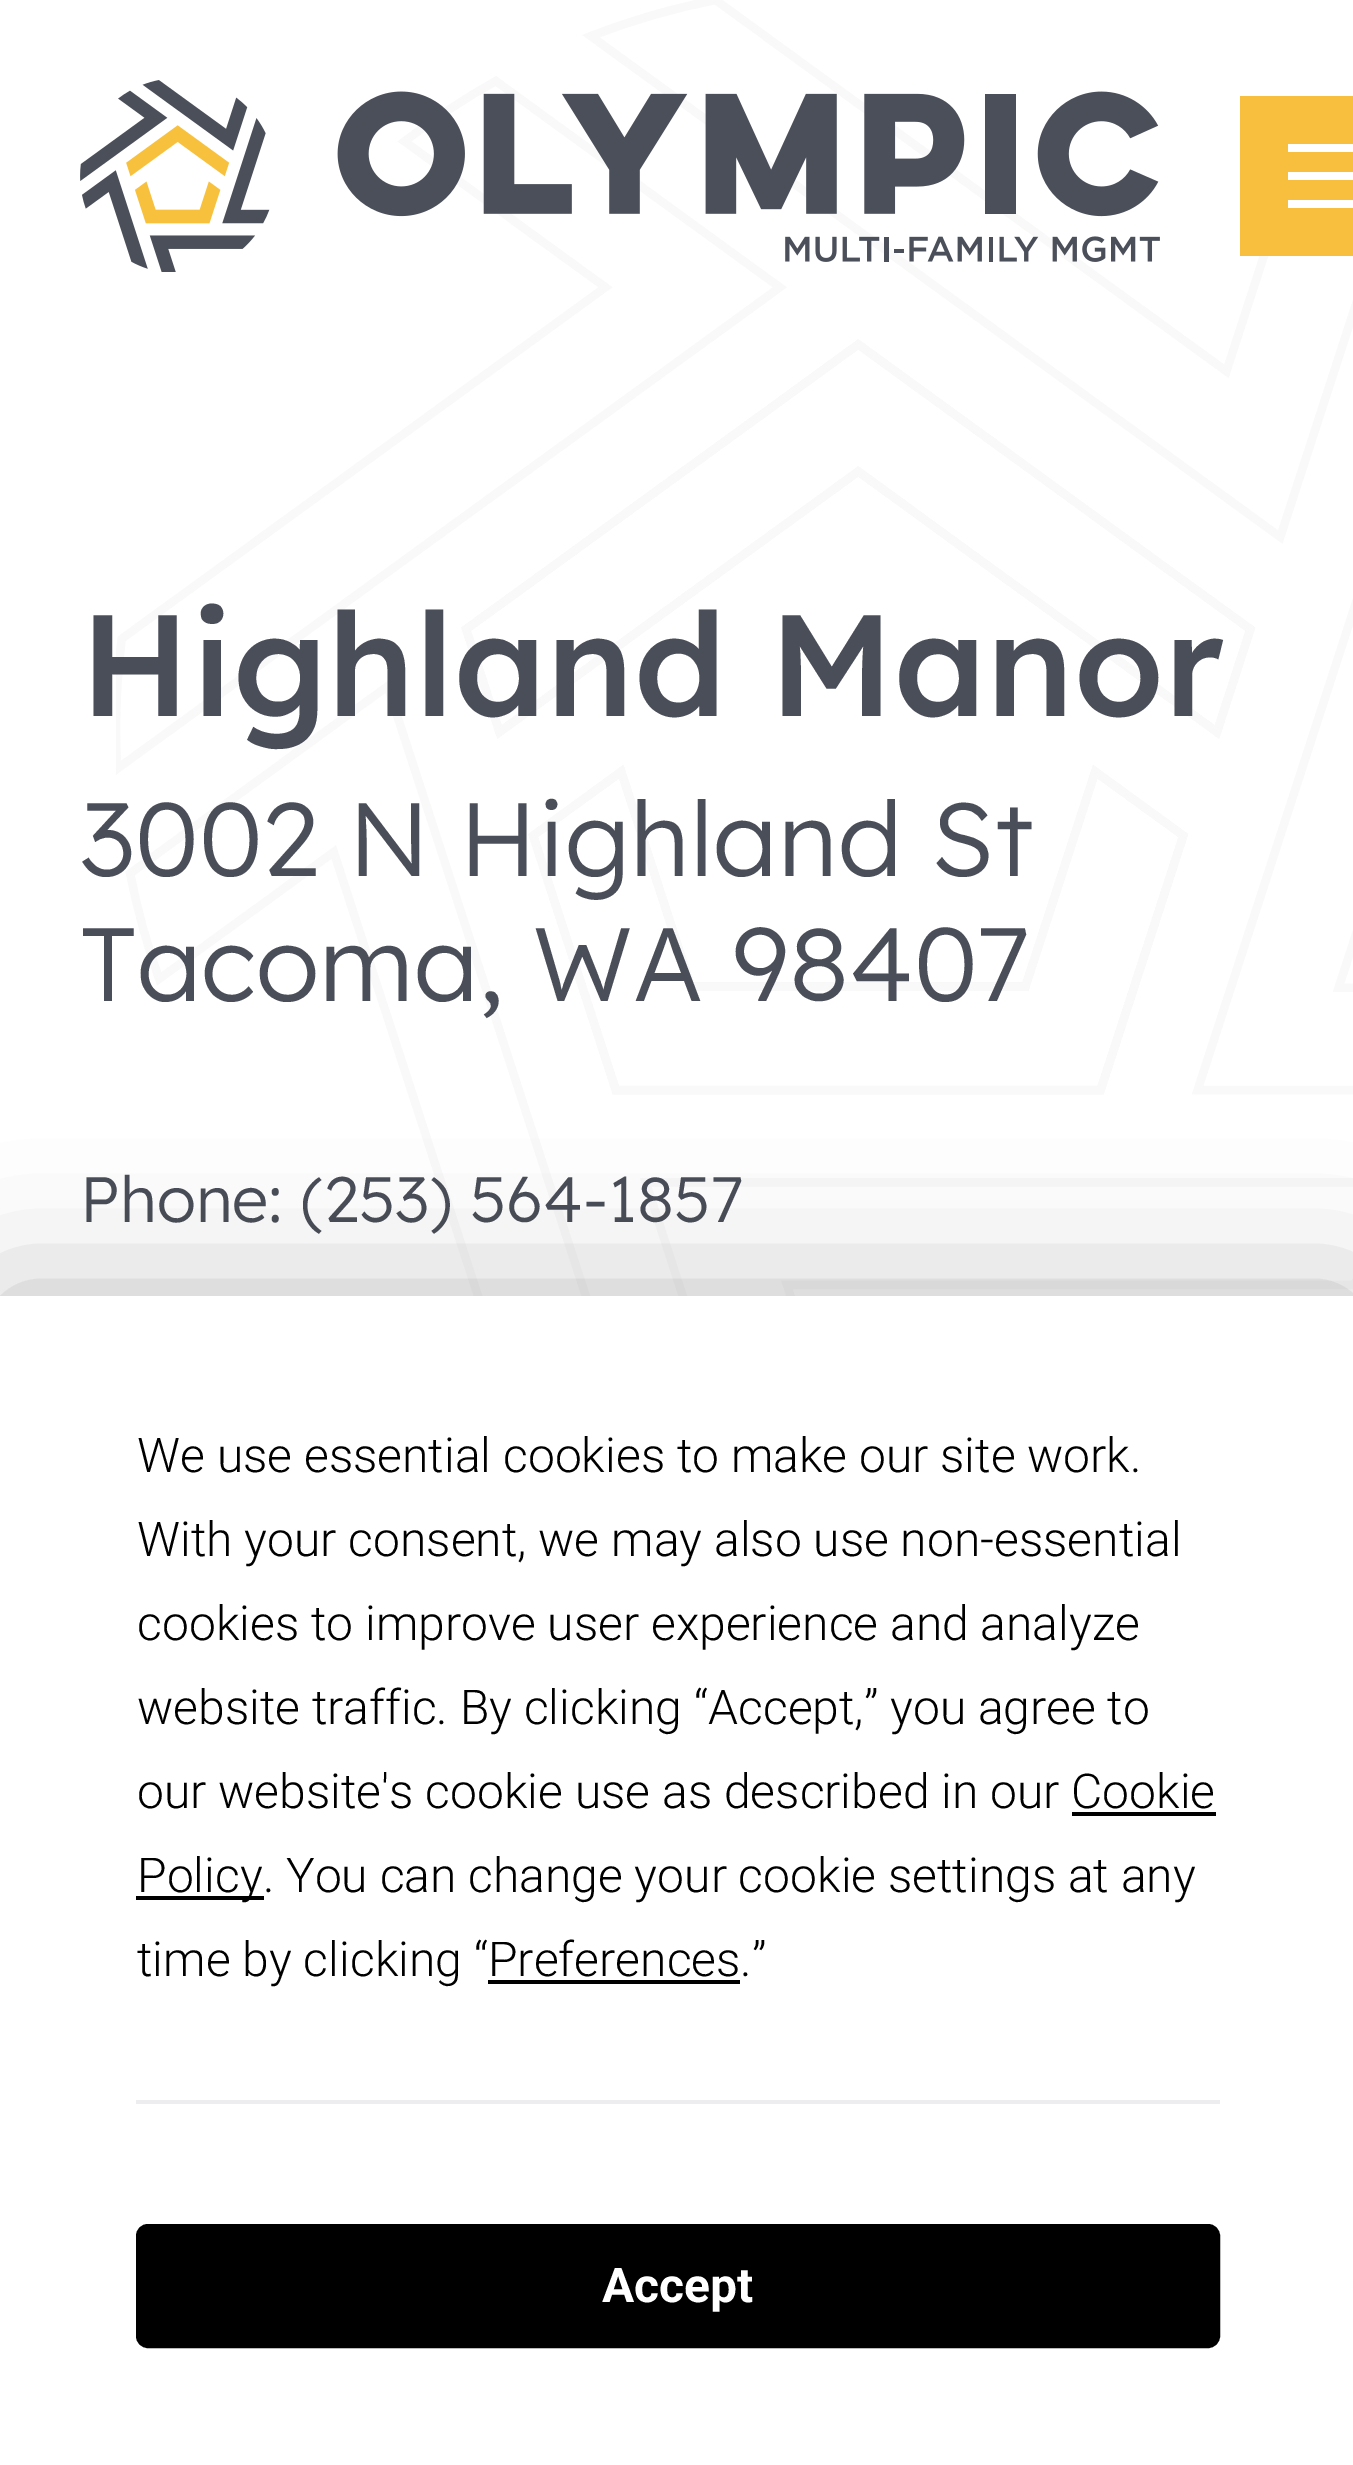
%!PS
<< /PageSize [1353 2465] /PageUsesTransparency true >> setpagedevice
/f/fill load def
/s/stroke load def
/q/gsave load def
/Q_/grestore load def
/w/setlinewidth load def
/C { dup -16 bitshift 255 div exch dup -8 bitshift 255 and 255 div exch 255 and 255 div setrgbcolor } def
/F { [ exch dup neg 0 0 3 -1 roll 0 0 ] selectfont } def
/T { moveto show } def
/R { rectfill } def
/A { dup .setfillconstantalpha .setstrokeconstantalpha } def
/Q { 5 dict begin { /r /h /w /y /x } { exch def } forall
  x r add y moveto x w add y 2 copy h add r arct x w add y h add x 1 index r arct
  x y h add x y r arct x y 2 copy exch w add exch r arct closepath end } def
/S { 12 dict begin { /a /b /q /h /w /y /x } { exch def } forall gsave /was 0 def
  9 -2 -9 { dup b mul 4 div /e exch def 1 sub .425 mul 2.718 exch exp 1 add a .99 .min exch div /now exch def
    1 1 now sub 1 was sub div sub A /was now def
    w h .min e 2 mul add 0 gt { x e sub y e sub w e 2 mul add h e 2 mul add
      q e add b .6 mul add w h .min 2 div e add .min 0 .max Q fill } if } for grestore end } def
/I { 5 dict begin { /h /w /y /x /name } { exch def } forall
  gsave x y translate w h scale
  w h 8 [w 0 0 h 0 0] name (r) file false 3 colorimage grestore end } def
0 .pushpdf14devicefilter
0 2465 translate 1 -1 scale
4 setmiterlimit
16#FFFFFF C
0 0 1353 2465 R
(1.rgb) 116 0 1237 1296 I
(2.rgb) 80 80 1080 192 I
16#F7BF3D C
1240 96 113 160 R
16#FFFFFF C
1288 200 65 8 R
1288 144 65 8 R
1288 172 65 8 R
/Lexend-Medium 144 F
16#4A4E58 C
(Highland Manor) 80 716 T
/Lexend-Light 104 F
(3002 N Highland St) 80 876 T
(Tacoma, WA 98407) 80 1001 T
/Lexend-Light 64 F
(Phone: \(253\) 564-1857) 80 1222 T
16#000000 C
0 1296 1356 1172 0 70 .25 S
16#FFFFFF C
0 1296 1353 1169 R
/Roboto-Light 48 F
16#000000 C
(We use essential cookies to make our site work.) 137 1472 T
(With your consent, we may also use non-essential) 137 1556 T
(cookies to improve user experience and analyze) 137 1640 T
(website traffic. By clicking “Accept,” you agree to) 137 1724 T
(our website's cookie use as described in our Cookie) 137 1808 T
136 1896 128 4 R
(Policy. You can change your cookie settings at any) 137 1892 T
1072 1812 144 4 R
(time by clicking “Preferences.”) 137 1976 T
488 1980 252 4 R
16#EDEDEF C
136 2100 1084 4 R
16#000000 C
138 2226 1080 120 10 Q q f Q_
4 w
s
/Roboto-Bold 48 F
16#FFFFFF C
(Accept) 602 2302 T
.poppdf14devicefilter showpage
